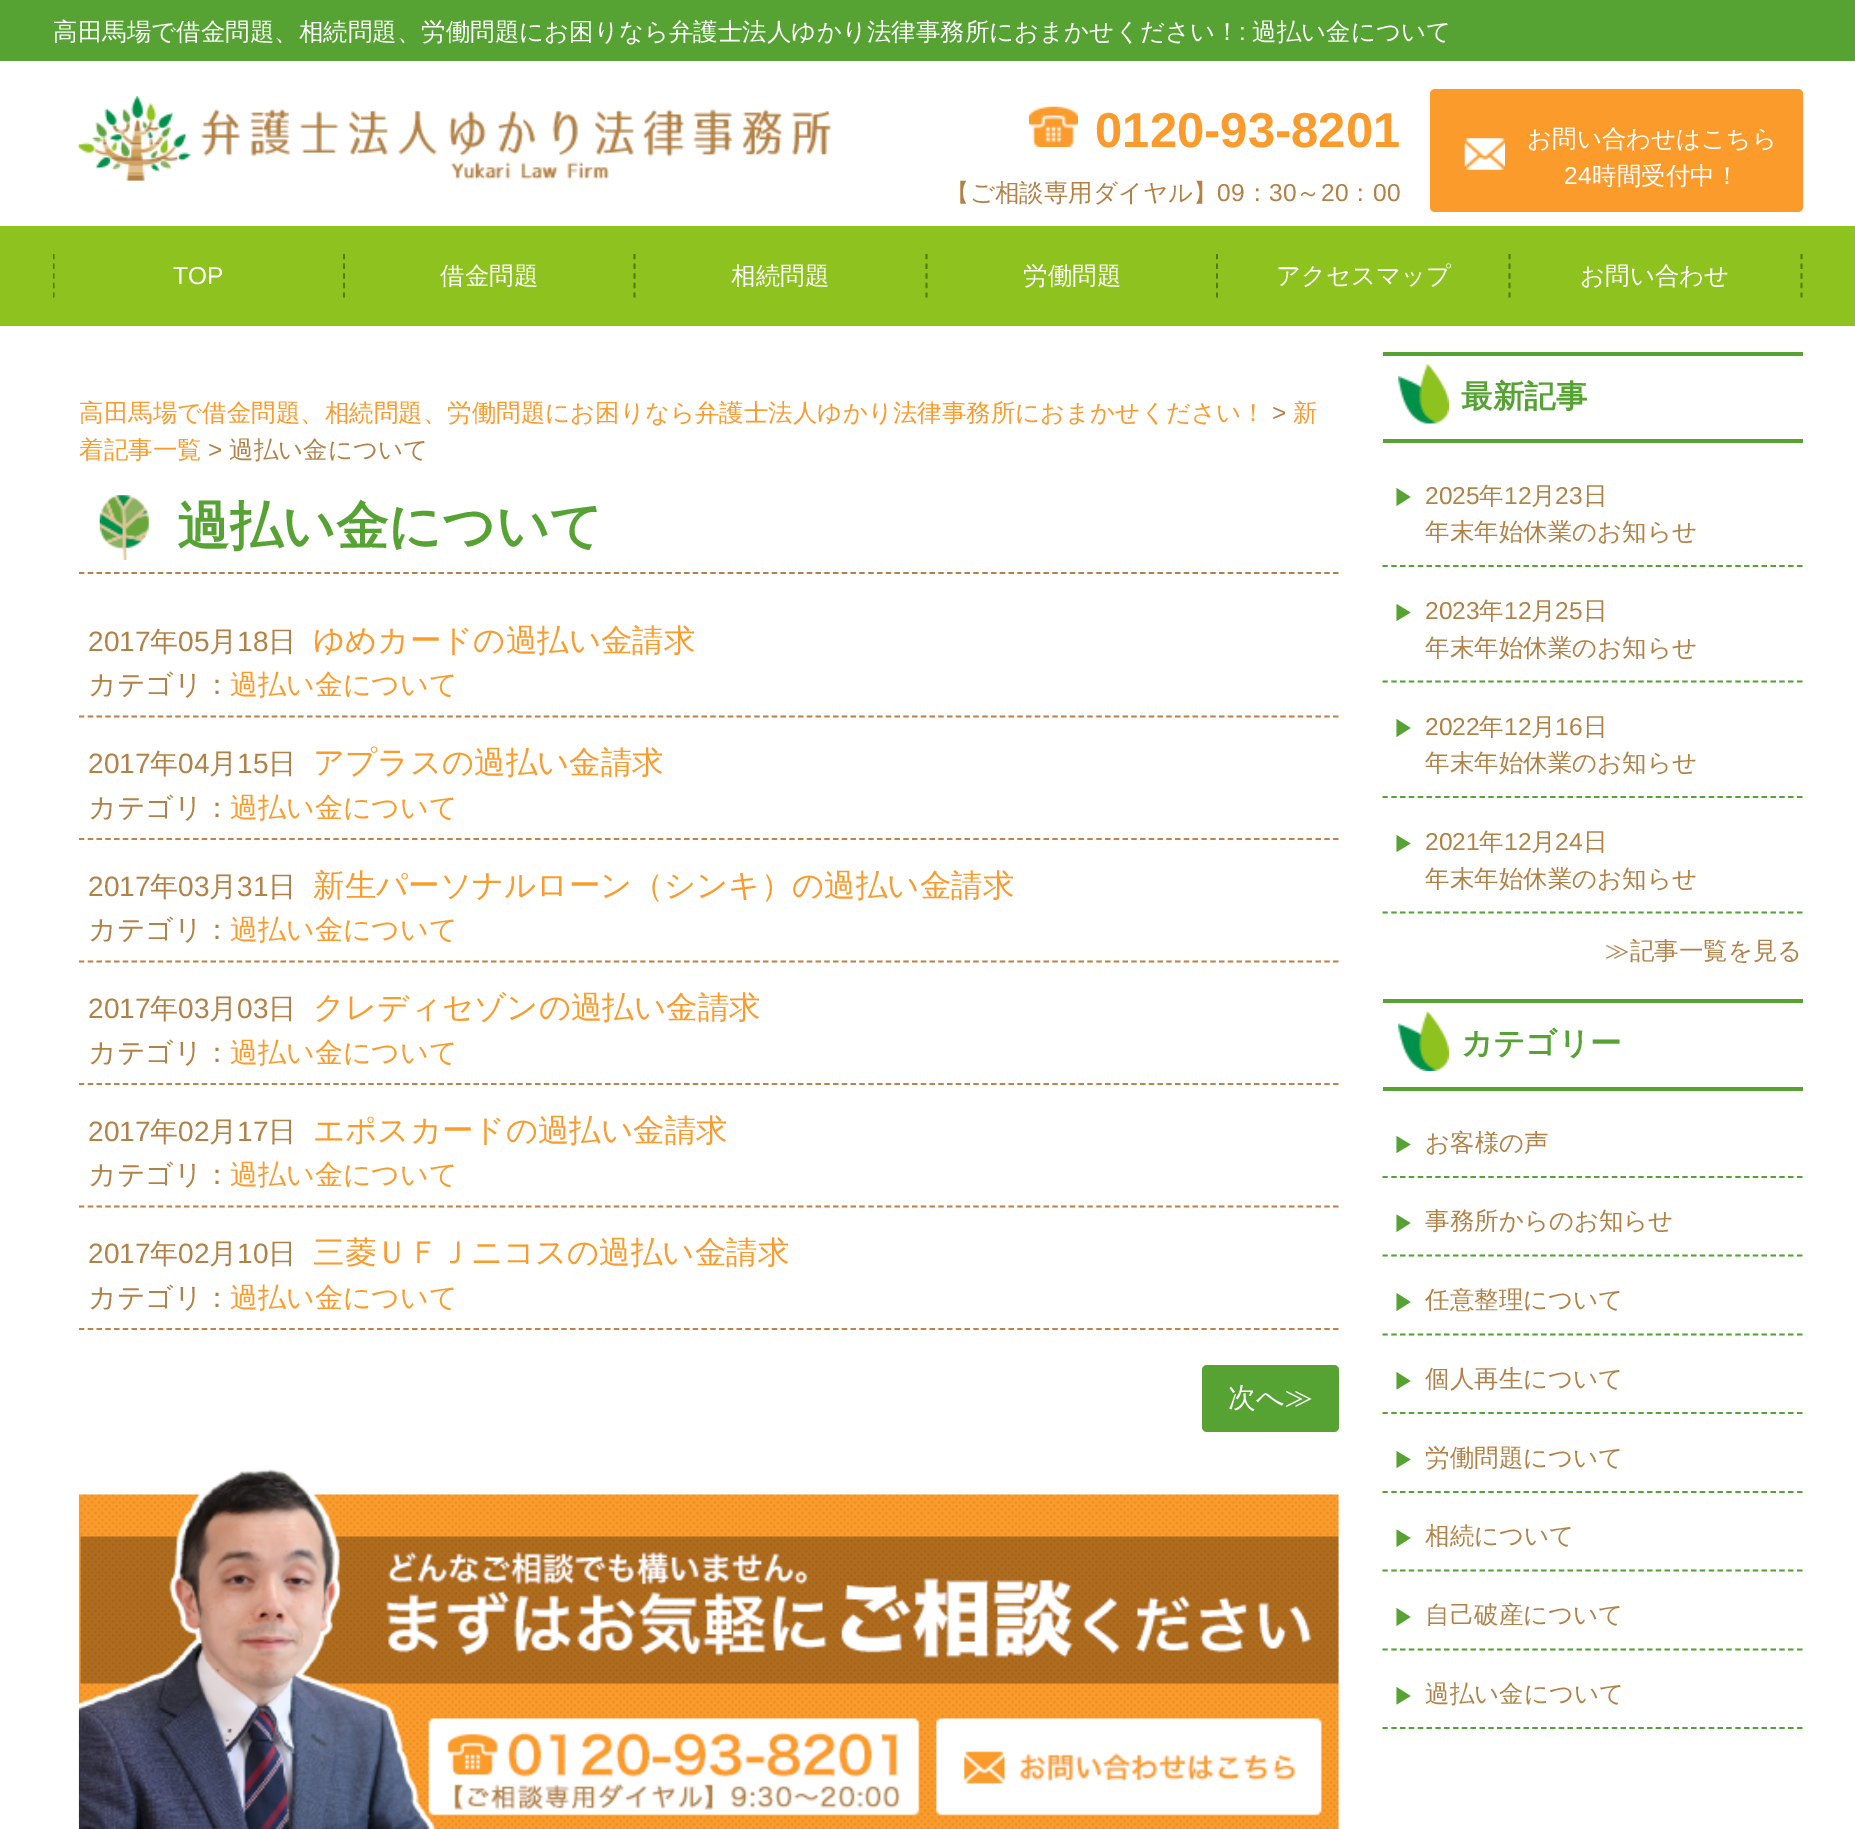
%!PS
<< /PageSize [1855 1829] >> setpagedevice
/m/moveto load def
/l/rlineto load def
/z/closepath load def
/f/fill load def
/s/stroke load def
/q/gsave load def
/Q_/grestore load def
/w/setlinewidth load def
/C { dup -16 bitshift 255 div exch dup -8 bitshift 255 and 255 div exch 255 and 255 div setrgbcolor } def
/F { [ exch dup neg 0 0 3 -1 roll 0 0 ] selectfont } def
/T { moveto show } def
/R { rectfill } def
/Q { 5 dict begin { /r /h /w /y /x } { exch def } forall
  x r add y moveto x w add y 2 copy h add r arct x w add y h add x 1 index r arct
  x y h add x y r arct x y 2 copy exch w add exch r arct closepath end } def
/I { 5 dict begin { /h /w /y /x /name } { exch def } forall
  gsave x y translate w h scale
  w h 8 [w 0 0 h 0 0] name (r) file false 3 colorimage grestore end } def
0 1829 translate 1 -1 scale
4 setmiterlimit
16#FFFFFF C
0 0 1855 1829 R
16#56A334 C
0 0 1855 61 R
/WenQuanYiZenHei-Medium 24.5 F
16#FFFFFF C
(高田馬場で借金問題、相続問題、労働問題にお困りなら弁護士法人ゆかり法律事務所におまかせください！) 53 40 T
/LiberationSans-Regular 24.5 F
(:) 1239 40 T
/WenQuanYiZenHei-Medium 24.5 F
(過払い金について) 1252 40 T
(1.rgb) 78 96 754 85 I
(2.rgb) 1029 106 49 41 I
/LiberationSans-Bold 49 F
16#FA9B2B C
(0120-93-8201) 1095 147 T
/WenQuanYiZenHei-Medium 24.5 F
16#B28146 C
(【ご相談専用ダイヤル】) 945 201 T
/LiberationSans-Regular 24.5 F
(09) 1217 201 T
/WenQuanYiZenHei-Medium 24.5 F
(：) 1245 201 T
/LiberationSans-Regular 24.5 F
(30) 1269 201 T
/WenQuanYiZenHei-Medium 24.5 F
(～) 1296 201 T
/LiberationSans-Regular 24.5 F
(20) 1321 201 T
/WenQuanYiZenHei-Medium 24.5 F
(：) 1348 201 T
/LiberationSans-Regular 24.5 F
(00) 1373 201 T
16#FA9B2B C
1430 89 373 123 5 Q f
(3.rgb) 1464 138 41 32 I
/WenQuanYiZenHei-Medium 24.5 F
16#FFFFFF C
(お問い合わせはこちら) 1527 147 T
/LiberationSans-Regular 24.5 F
(24) 1564 184 T
/WenQuanYiZenHei-Medium 24.5 F
(時間受付中！) 1592 184 T
16#8DC21F C
0 226 1855 100 R
16#4D8000 C
1.8 w
[5.25 4.38] 0 setdash
344 254 m 0 43.5 l s
q
53 226 1750 100 rectclip
53.5 254 m 0 43.5 l s
Q_
/LiberationSans-Regular 24.5 F
16#FFFFFF C
(TOP) 173 284 T
16#4D8000 C
634.5 254 m 0 43.5 l s
/WenQuanYiZenHei-Medium 24.5 F
16#FFFFFF C
(借金問題) 440 284 T
16#4D8000 C
926.5 254 m 0 43.5 l s
16#FFFFFF C
(相続問題) 731 284 T
16#4D8000 C
1217 254 m 0 43.5 l s
16#FFFFFF C
(労働問題) 1023 284 T
16#4D8000 C
1509.5 254 m 0 43.5 l s
16#FFFFFF C
(アクセスマップ) 1276 284 T
16#4D8000 C
1801.5 254 m 0 43.5 l s
16#FFFFFF C
(お問い合わせ) 1580 284 T
16#FA9B2B C
(高田馬場で借金問題、相続問題、労働問題にお困りなら弁護士法人ゆかり法律事務所におまかせください！) 79 421 T
/LiberationSans-Regular 24.5 F
16#B28146 C
(>) 1272 421 T
/WenQuanYiZenHei-Medium 24.5 F
16#FA9B2B C
(新) 1293 421 T
(着記事一覧) 79 458 T
/LiberationSans-Regular 24.5 F
16#B28146 C
(>) 208 458 T
/WenQuanYiZenHei-Medium 24.5 F
(過払い金について) 229 458 T
[5.25 3.52] 0 setdash
79 573 m 1260 0 l s
(4.rgb) 99 495 50 65 I
/WenQuanYiZenHei-Bold 52.5 F
16#56A334 C
(過払い金について) 177 544 T
16#C28146 C
79 716.5 m 1260 0 l s
/LiberationSans-Regular 28 F
16#B28146 C
(2017) 88 651 T
/WenQuanYiZenHei-Medium 28 F
(年) 150 651 T
/LiberationSans-Regular 28 F
(05) 178 651 T
/WenQuanYiZenHei-Medium 28 F
(月) 209 651 T
/LiberationSans-Regular 28 F
(18) 237 651 T
/WenQuanYiZenHei-Medium 28 F
(日) 268 651 T
/WenQuanYiZenHei-Medium 31.5 F
16#FA9B2B C
(ゆめカードの過払い金請求) 313 651 T
/WenQuanYiZenHei-Medium 28 F
16#B28146 C
(カテゴリ：) 88 694 T
16#FA9B2B C
(過払い金について) 230 694 T
16#C28146 C
79 839 m 1260 0 l s
/LiberationSans-Regular 28 F
16#B28146 C
(2017) 88 773 T
/WenQuanYiZenHei-Medium 28 F
(年) 150 773 T
/LiberationSans-Regular 28 F
(04) 178 773 T
/WenQuanYiZenHei-Medium 28 F
(月) 209 773 T
/LiberationSans-Regular 28 F
(15) 237 773 T
/WenQuanYiZenHei-Medium 28 F
(日) 268 773 T
/WenQuanYiZenHei-Medium 31.5 F
16#FA9B2B C
(アプラスの過払い金請求) 313 773 T
/WenQuanYiZenHei-Medium 28 F
16#B28146 C
(カテゴリ：) 88 817 T
16#FA9B2B C
(過払い金について) 230 817 T
16#C28146 C
79 961.5 m 1260 0 l s
/LiberationSans-Regular 28 F
16#B28146 C
(2017) 88 896 T
/WenQuanYiZenHei-Medium 28 F
(年) 150 896 T
/LiberationSans-Regular 28 F
(03) 178 896 T
/WenQuanYiZenHei-Medium 28 F
(月) 209 896 T
/LiberationSans-Regular 28 F
(31) 237 896 T
/WenQuanYiZenHei-Medium 28 F
(日) 268 896 T
/WenQuanYiZenHei-Medium 31.5 F
16#FA9B2B C
(新生パーソナルローン（シンキ）の過払い金請求) 313 896 T
/WenQuanYiZenHei-Medium 28 F
16#B28146 C
(カテゴリ：) 88 939 T
16#FA9B2B C
(過払い金について) 230 939 T
16#C28146 C
79 1084 m 1260 0 l s
/LiberationSans-Regular 28 F
16#B28146 C
(2017) 88 1018 T
/WenQuanYiZenHei-Medium 28 F
(年) 150 1018 T
/LiberationSans-Regular 28 F
(03) 178 1018 T
/WenQuanYiZenHei-Medium 28 F
(月) 209 1018 T
/LiberationSans-Regular 28 F
(03) 237 1018 T
/WenQuanYiZenHei-Medium 28 F
(日) 268 1018 T
/WenQuanYiZenHei-Medium 31.5 F
16#FA9B2B C
(クレディセゾンの過払い金請求) 313 1018 T
/WenQuanYiZenHei-Medium 28 F
16#B28146 C
(カテゴリ：) 88 1062 T
16#FA9B2B C
(過払い金について) 230 1062 T
16#C28146 C
79 1206.5 m 1260 0 l s
/LiberationSans-Regular 28 F
16#B28146 C
(2017) 88 1141 T
/WenQuanYiZenHei-Medium 28 F
(年) 150 1141 T
/LiberationSans-Regular 28 F
(02) 178 1141 T
/WenQuanYiZenHei-Medium 28 F
(月) 209 1141 T
/LiberationSans-Regular 28 F
(17) 237 1141 T
/WenQuanYiZenHei-Medium 28 F
(日) 268 1141 T
/WenQuanYiZenHei-Medium 31.5 F
16#FA9B2B C
(エポスカードの過払い金請求) 313 1141 T
/WenQuanYiZenHei-Medium 28 F
16#B28146 C
(カテゴリ：) 88 1184 T
16#FA9B2B C
(過払い金について) 230 1184 T
16#C28146 C
79 1329 m 1260 0 l s
/LiberationSans-Regular 28 F
16#B28146 C
(2017) 88 1263 T
/WenQuanYiZenHei-Medium 28 F
(年) 150 1263 T
/LiberationSans-Regular 28 F
(02) 178 1263 T
/WenQuanYiZenHei-Medium 28 F
(月) 209 1263 T
/LiberationSans-Regular 28 F
(10) 237 1263 T
/WenQuanYiZenHei-Medium 28 F
(日) 268 1263 T
/WenQuanYiZenHei-Medium 31.5 F
16#FA9B2B C
(三菱ＵＦＪニコスの過払い金請求) 313 1263 T
/WenQuanYiZenHei-Medium 28 F
16#B28146 C
(カテゴリ：) 88 1307 T
16#FA9B2B C
(過払い金について) 230 1307 T
16#56A334 C
1202 1365 137 67 5 Q f
16#FFFFFF C
(次へ≫) 1228 1407 T
(5.rgb) 78 1469 1261 360 I
16#56A334 C
1383 352 420 4 R
1383 439 420 4 R
(6.rgb) 1398 364 51 60 I
/WenQuanYiZenHei-Bold 31.5 F
(最新記事) 1461 407 T
[5.25 3.57] 0 setdash
1382.5 566 m 420 0 l s
1396.5 506 m 0 -18 l 14 9 l z f
/LiberationSans-Regular 24.5 F
16#B28146 C
(2025) 1425 504 T
/WenQuanYiZenHei-Medium 24.5 F
(年) 1479 504 T
/LiberationSans-Regular 24.5 F
(12) 1504 504 T
/WenQuanYiZenHei-Medium 24.5 F
(月) 1531 504 T
/LiberationSans-Regular 24.5 F
(23) 1555 504 T
/WenQuanYiZenHei-Medium 24.5 F
(日) 1583 504 T
(年末年始休業のお知らせ) 1425 540 T
16#56A334 C
1382.5 681.5 m 420 0 l s
1396.5 621 m 0 -17 l 14 8.5 l z f
/LiberationSans-Regular 24.5 F
16#B28146 C
(2023) 1425 619 T
/WenQuanYiZenHei-Medium 24.5 F
(年) 1479 619 T
/LiberationSans-Regular 24.5 F
(12) 1504 619 T
/WenQuanYiZenHei-Medium 24.5 F
(月) 1531 619 T
/LiberationSans-Regular 24.5 F
(25) 1555 619 T
/WenQuanYiZenHei-Medium 24.5 F
(日) 1583 619 T
(年末年始休業のお知らせ) 1425 656 T
16#56A334 C
1382.5 797 m 420 0 l s
1396.5 737 m 0 -18 l 14 9 l z f
/LiberationSans-Regular 24.5 F
16#B28146 C
(2022) 1425 735 T
/WenQuanYiZenHei-Medium 24.5 F
(年) 1479 735 T
/LiberationSans-Regular 24.5 F
(12) 1504 735 T
/WenQuanYiZenHei-Medium 24.5 F
(月) 1531 735 T
/LiberationSans-Regular 24.5 F
(16) 1555 735 T
/WenQuanYiZenHei-Medium 24.5 F
(日) 1583 735 T
(年末年始休業のお知らせ) 1425 771 T
16#56A334 C
1382.5 912.5 m 420 0 l s
1396.5 852 m 0 -17 l 14 8.5 l z f
/LiberationSans-Regular 24.5 F
16#B28146 C
(2021) 1425 850 T
/WenQuanYiZenHei-Medium 24.5 F
(年) 1479 850 T
/LiberationSans-Regular 24.5 F
(12) 1504 850 T
/WenQuanYiZenHei-Medium 24.5 F
(月) 1531 850 T
/LiberationSans-Regular 24.5 F
(24) 1555 850 T
/WenQuanYiZenHei-Medium 24.5 F
(日) 1583 850 T
(年末年始休業のお知らせ) 1425 887 T
(≫記事一覧を見る) 1605 959 T
16#56A334 C
1383 999 420 4 R
1383 1087 420 4 R
(7.rgb) 1398 1011 51 60 I
/WenQuanYiZenHei-Bold 31.5 F
(カテゴリー) 1461 1054 T
1382.5 1177 m 420 0 l s
1396.5 1153 m 0 -17 l 14 8.5 l z f
/WenQuanYiZenHei-Medium 24.5 F
16#B28146 C
(お客様の声) 1425 1151 T
16#56A334 C
1382.5 1255.5 m 420 0 l s
1396.5 1232 m 0 -17.5 l 14 8.5 l z f
16#B28146 C
(事務所からのお知らせ) 1425 1229 T
16#56A334 C
1382.5 1334.5 m 420 0 l s
1396.5 1311 m 0 -18 l 14 9 l z f
16#B28146 C
(任意整理について) 1425 1308 T
16#56A334 C
1382.5 1413 m 420 0 l s
1396.5 1389.5 m 0 -17.5 l 14 9 l z f
16#B28146 C
(個人再生について) 1425 1387 T
16#56A334 C
1382.5 1492 m 420 0 l s
1396.5 1468 m 0 -17 l 14 8.5 l z f
16#B28146 C
(労働問題について) 1425 1466 T
16#56A334 C
1382.5 1570.5 m 420 0 l s
1396.5 1547 m 0 -17.5 l 14 8.5 l z f
16#B28146 C
(相続について) 1425 1544 T
16#56A334 C
1382.5 1649.5 m 420 0 l s
1396.5 1626 m 0 -18 l 14 9 l z f
16#B28146 C
(自己破産について) 1425 1623 T
16#56A334 C
1382.5 1728 m 420 0 l s
1396.5 1704.5 m 0 -17.5 l 14 9 l z f
16#B28146 C
(過払い金について) 1425 1702 T
showpage
